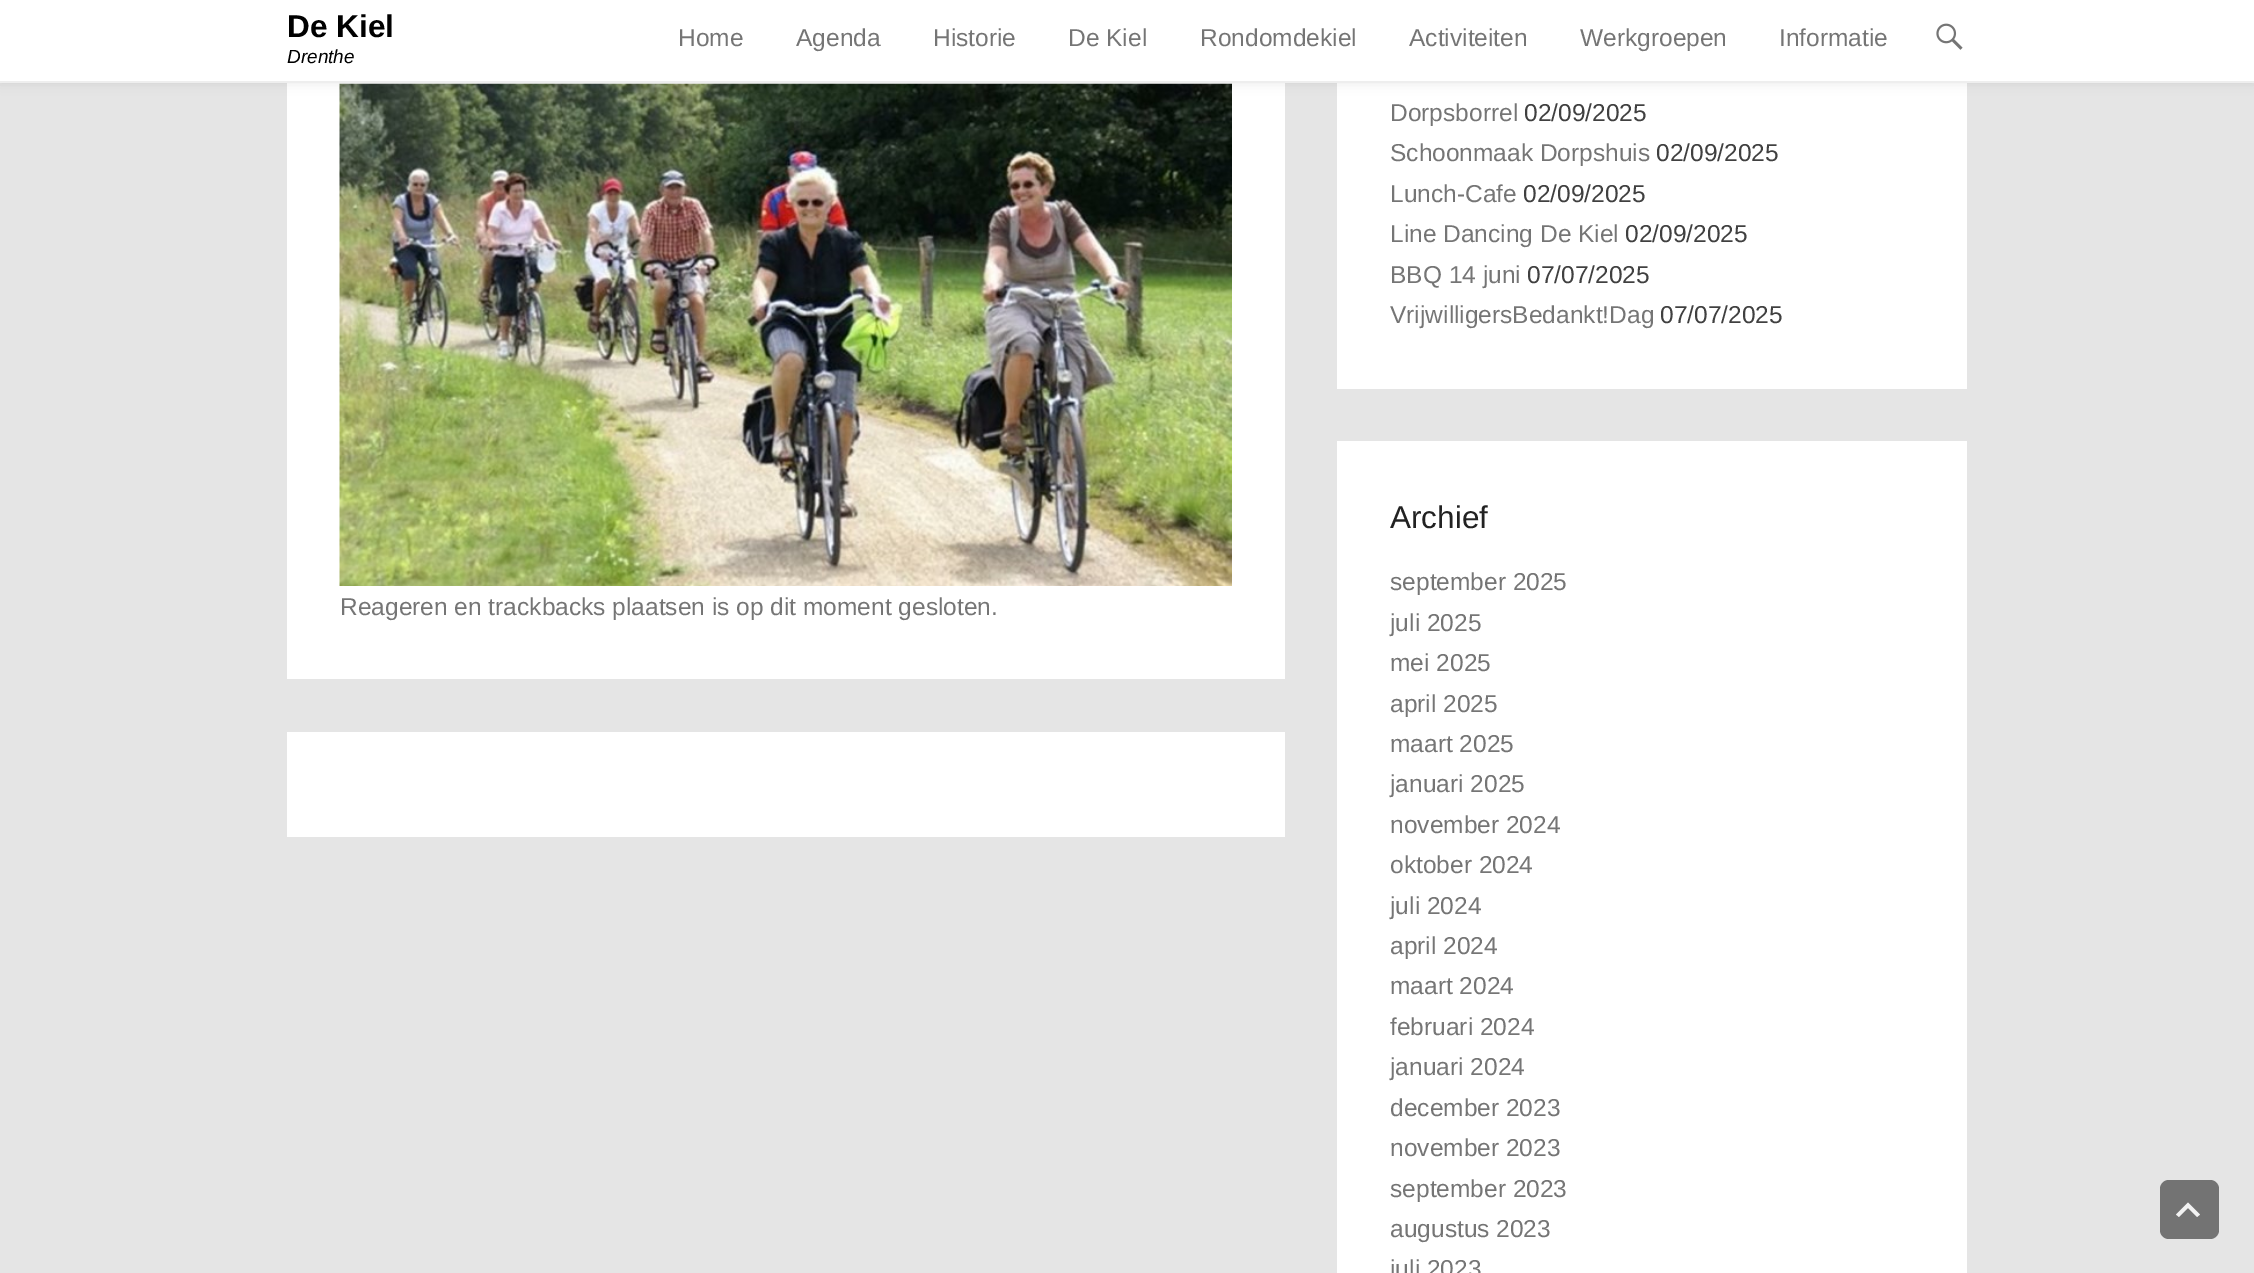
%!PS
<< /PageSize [2254 1273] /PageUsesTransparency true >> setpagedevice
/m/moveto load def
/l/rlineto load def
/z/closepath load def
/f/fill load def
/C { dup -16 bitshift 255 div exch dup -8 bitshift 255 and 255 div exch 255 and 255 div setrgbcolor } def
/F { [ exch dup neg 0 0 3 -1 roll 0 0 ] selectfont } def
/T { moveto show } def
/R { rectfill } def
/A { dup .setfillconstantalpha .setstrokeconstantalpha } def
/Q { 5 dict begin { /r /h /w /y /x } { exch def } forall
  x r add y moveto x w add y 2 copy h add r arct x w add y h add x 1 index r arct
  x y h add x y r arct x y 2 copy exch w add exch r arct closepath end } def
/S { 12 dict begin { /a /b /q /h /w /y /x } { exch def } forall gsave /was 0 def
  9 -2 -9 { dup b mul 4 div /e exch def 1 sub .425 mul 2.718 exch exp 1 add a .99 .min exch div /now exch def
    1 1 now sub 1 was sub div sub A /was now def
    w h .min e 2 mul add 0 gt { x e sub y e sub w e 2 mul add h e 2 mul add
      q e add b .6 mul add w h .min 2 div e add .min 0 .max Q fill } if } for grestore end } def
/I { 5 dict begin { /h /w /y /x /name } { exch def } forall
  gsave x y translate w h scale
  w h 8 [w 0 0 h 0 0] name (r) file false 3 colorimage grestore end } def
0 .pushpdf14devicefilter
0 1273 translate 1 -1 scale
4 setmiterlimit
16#E5E5E5 C
0 0 2254 1273 R
16#FFFFFF C
287 83 998 596 R
(2.rgb) 339 83 893 503 I
1337 83 630 306 R
16#000000 C
0 0 2254 82 0 6 .1 S
16#FFFFFF C
0 0 2254 81 R
16#EEEEEE C
0 81 2254 2 R
/LiberationSans-Bold 31.5 F
16#000000 C
(De Kiel) 287 37 T
/LiberationSans-Italic 19 F
(Drenthe) 287 63 T
/LiberationSans-Regular 24.5 F
16#757575 C
(Home) 678 46 T
(Agenda) 796 46 T
(Historie) 933 46 T
(De Kiel) 1068 46 T
(Rondomdekiel) 1200 46 T
(Activiteiten) 1409 46 T
(Werkgroepen) 1580 46 T
(Informatie) 1779 46 T
(1.rgb) 1936 23 27 27 I
(Reageren en trackbacks plaatsen is op dit moment gesloten.) 340 615 T
16#FFFFFF C
287 732 998 105 R
16#757575 C
(Dorpsborrel) 1390 121 T
16#404040 C
(02/09/2025) 1524 121 T
16#757575 C
(Schoonmaak Dorpshuis) 1390 161 T
16#404040 C
(02/09/2025) 1656 161 T
16#757575 C
(Lunch-Cafe) 1390 202 T
16#404040 C
(02/09/2025) 1523 202 T
16#757575 C
(Line Dancing De Kiel) 1390 242 T
16#404040 C
(02/09/2025) 1625 242 T
16#757575 C
(BBQ 14 juni) 1390 283 T
16#404040 C
(07/07/2025) 1527 283 T
16#757575 C
(VrijwilligersBedankt!Dag) 1390 323 T
16#404040 C
(07/07/2025) 1660 323 T
16#FFFFFF C
1337 441 630 832 R
/LiberationSans-Regular 31.5 F
16#222222 C
(Archief) 1390 528 T
/LiberationSans-Regular 24.5 F
16#757575 C
(september 2025) 1390 590 T
(juli 2025) 1390 631 T
(mei 2025) 1390 671 T
(april 2025) 1390 712 T
(maart 2025) 1390 752 T
(januari 2025) 1390 792 T
(november 2024) 1390 833 T
(oktober 2024) 1390 873 T
(juli 2024) 1390 914 T
(april 2024) 1390 954 T
(maart 2024) 1390 994 T
(februari 2024) 1390 1035 T
(januari 2024) 1390 1075 T
(december 2023) 1390 1116 T
(november 2023) 1390 1156 T
(september 2023) 1390 1197 T
(augustus 2023) 1390 1237 T
(juli 2023) 1390 1277 T
16#737373 C
2160 1180 59 59 9 Q f
16#F2F2F2 C
2197 1217 m -9 -9 l -9 9 l -3 -2.5 l 12 -12 l 12 12 l z f
.poppdf14devicefilter showpage
